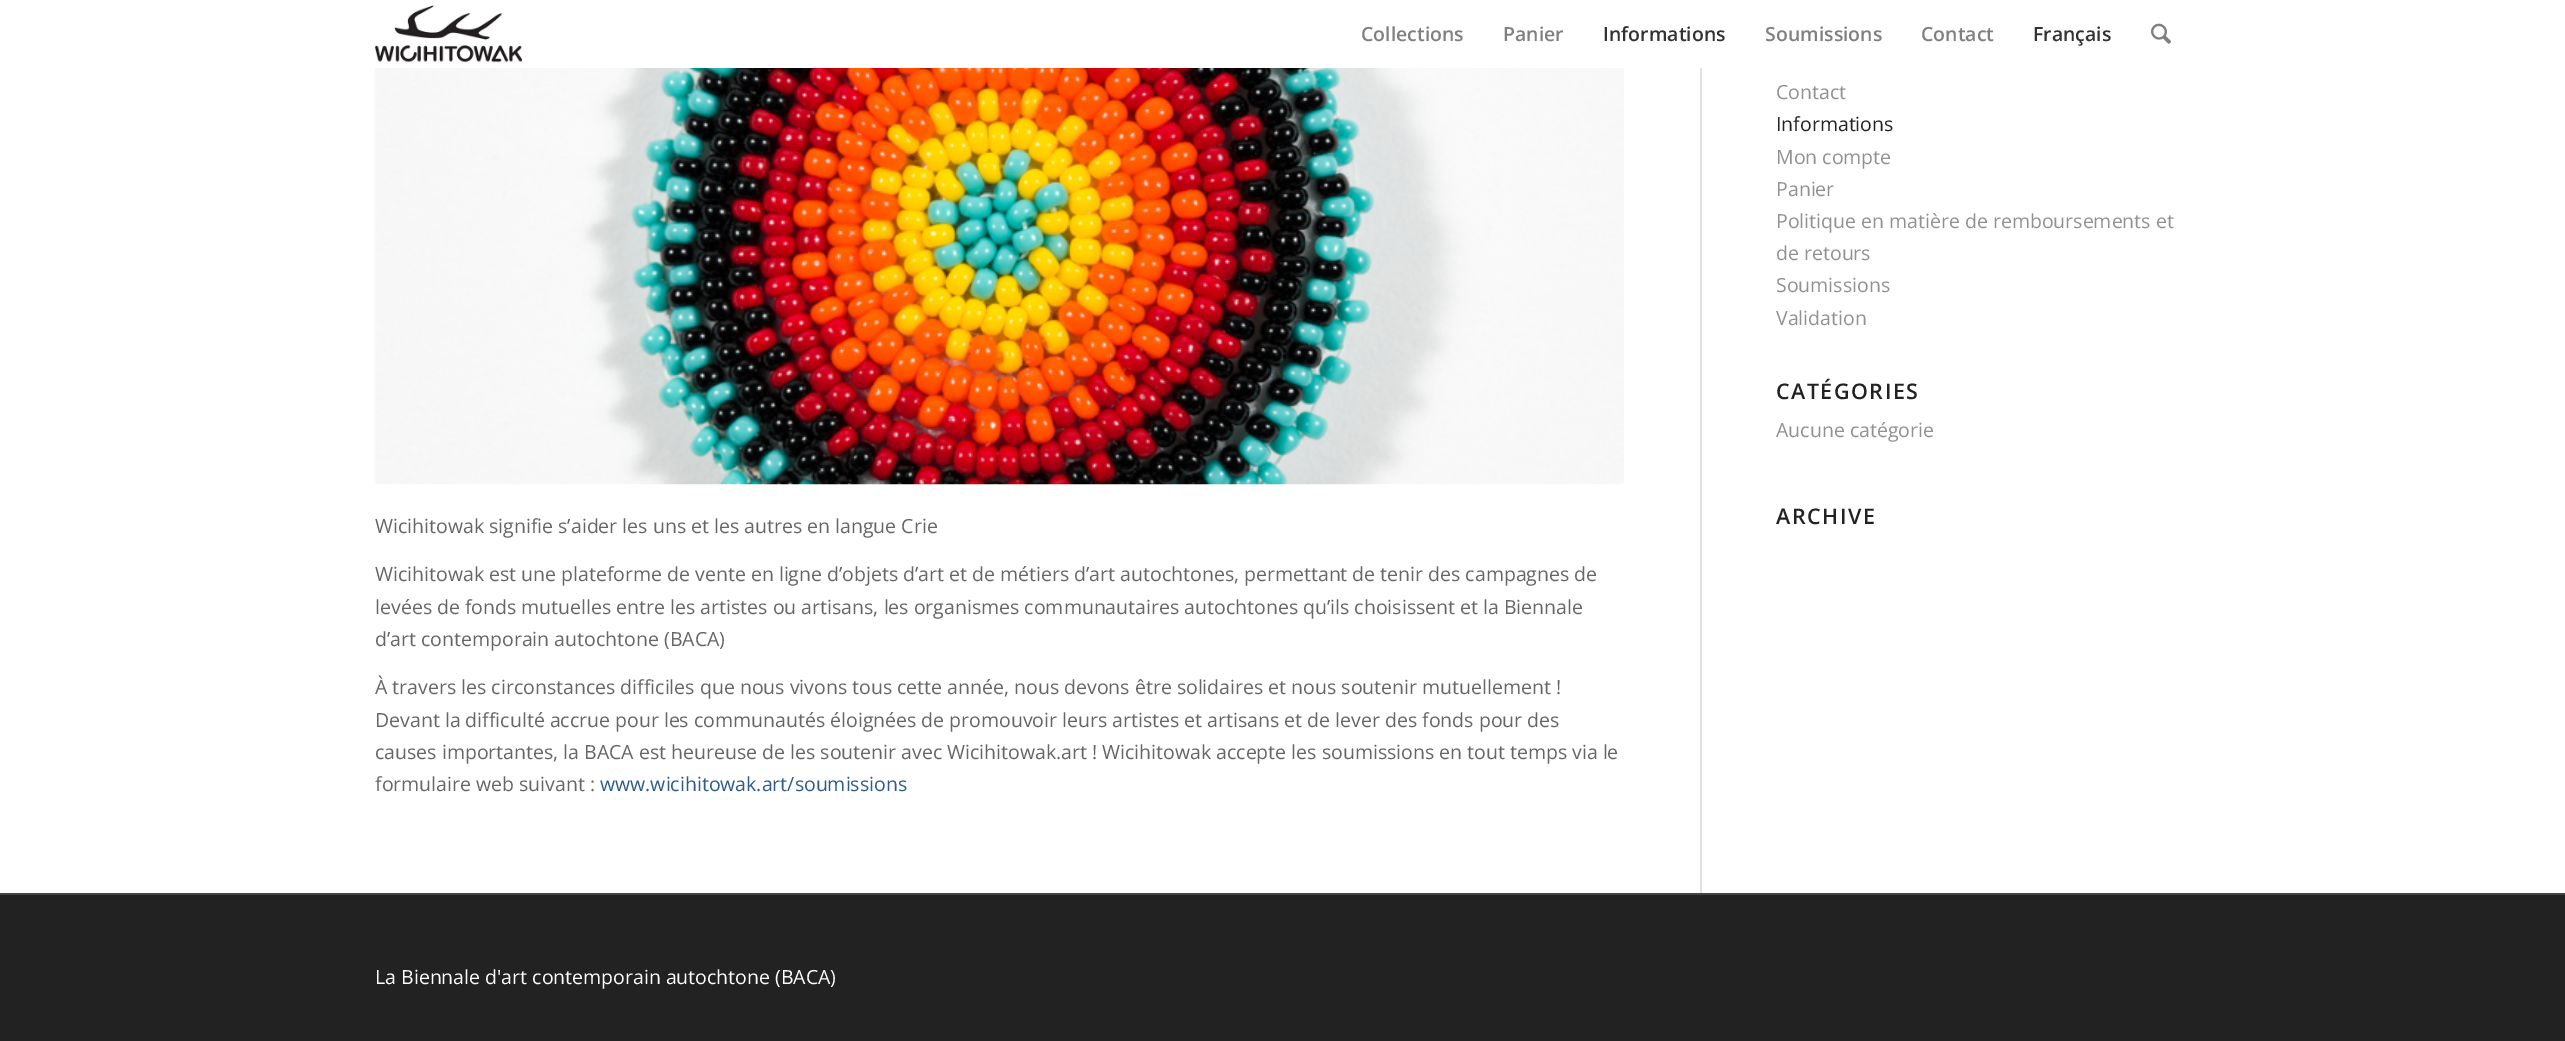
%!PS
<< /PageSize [2565 1041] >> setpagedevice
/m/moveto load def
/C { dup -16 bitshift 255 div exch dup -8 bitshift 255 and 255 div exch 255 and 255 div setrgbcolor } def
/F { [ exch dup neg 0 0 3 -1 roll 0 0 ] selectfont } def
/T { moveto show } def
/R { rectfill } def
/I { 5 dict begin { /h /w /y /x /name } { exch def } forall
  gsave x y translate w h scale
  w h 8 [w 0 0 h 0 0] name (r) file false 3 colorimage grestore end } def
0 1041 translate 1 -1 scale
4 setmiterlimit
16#FFFFFF C
0 0 2565 1041 R
(1.rgb) 375 5 147 58 I
/OpenSans-SemiBold 19.5 F
16#808080 C
(Collections) 1361 41 T
(Panier) 1503 41 T
16#333333 C
(Informations) 1603 41 T
16#808080 C
(Soumissions) 1765 41 T
(Contact) 1921 41 T
16#333333 C
(Français) 2033 41 T
(2.rgb) 2151 23 20 21 I
/OpenSans-Regular 19.5 F
16#919191 C
(Contact) 1776 99 T
16#222222 C
(Informations) 1776 131 T
16#919191 C
(Mon compte) 1776 164 T
(Panier) 1776 196 T
(Politique en matière de remboursements et) 1776 228 T
(de retours) 1776 260 T
(Soumissions) 1776 292 T
(Validation) 1776 325 T
/OpenSans-SemiBold 21.5 F
16#222222 C
1776 399 m 1.5 0 (CATÉGORIES) ashow
/OpenSans-Regular 19.5 F
16#919191 C
(Aucune catégorie) 1776 437 T
/OpenSans-SemiBold 21.5 F
16#222222 C
1776 524 m 1.5 0 (ARCHIVE) ashow
16#E1E1E1 C
1700 68 2 825 R
(3.rgb) 375 68 1249 417 I
/OpenSans-Regular 19.5 F
16#666666 C
(Wicihitowak signifie s’aider les uns et les autres en langue Crie) 375 533 T
(Wicihitowak est une plateforme de vente en ligne d’objets d’art et de métiers d’art autochtones, permettant de tenir des campagnes de) 375 581 T
(levées de fonds mutuelles entre les artistes ou artisans, les organismes communautaires autochtones qu’ils choisissent et la Biennale) 375 614 T
(d’art contemporain autochtone \(BACA\)) 375 646 T
(À travers les circonstances difficiles que nous vivons tous cette année, nous devons être solidaires et nous soutenir mutuellement !) 375 694 T
(Devant la difficulté accrue pour les communautés éloignées de promouvoir leurs artistes et artisans et de lever des fonds pour des) 375 727 T
(causes importantes, la BACA est heureuse de les soutenir avec Wicihitowak.art ! Wicihitowak accepte les soumissions en tout temps via le) 375 759 T
(formulaire web suivant :) 375 791 T
16#2D5C88 C
(www.wicihitowak.art/soumissions) 600 791 T
16#222222 C
0 895 2565 146 R
16#444444 C
0 893 2565 2 R
16#FFFFFF C
(La Biennale d'art contemporain autochtone \(BACA\)) 375 984 T
showpage
